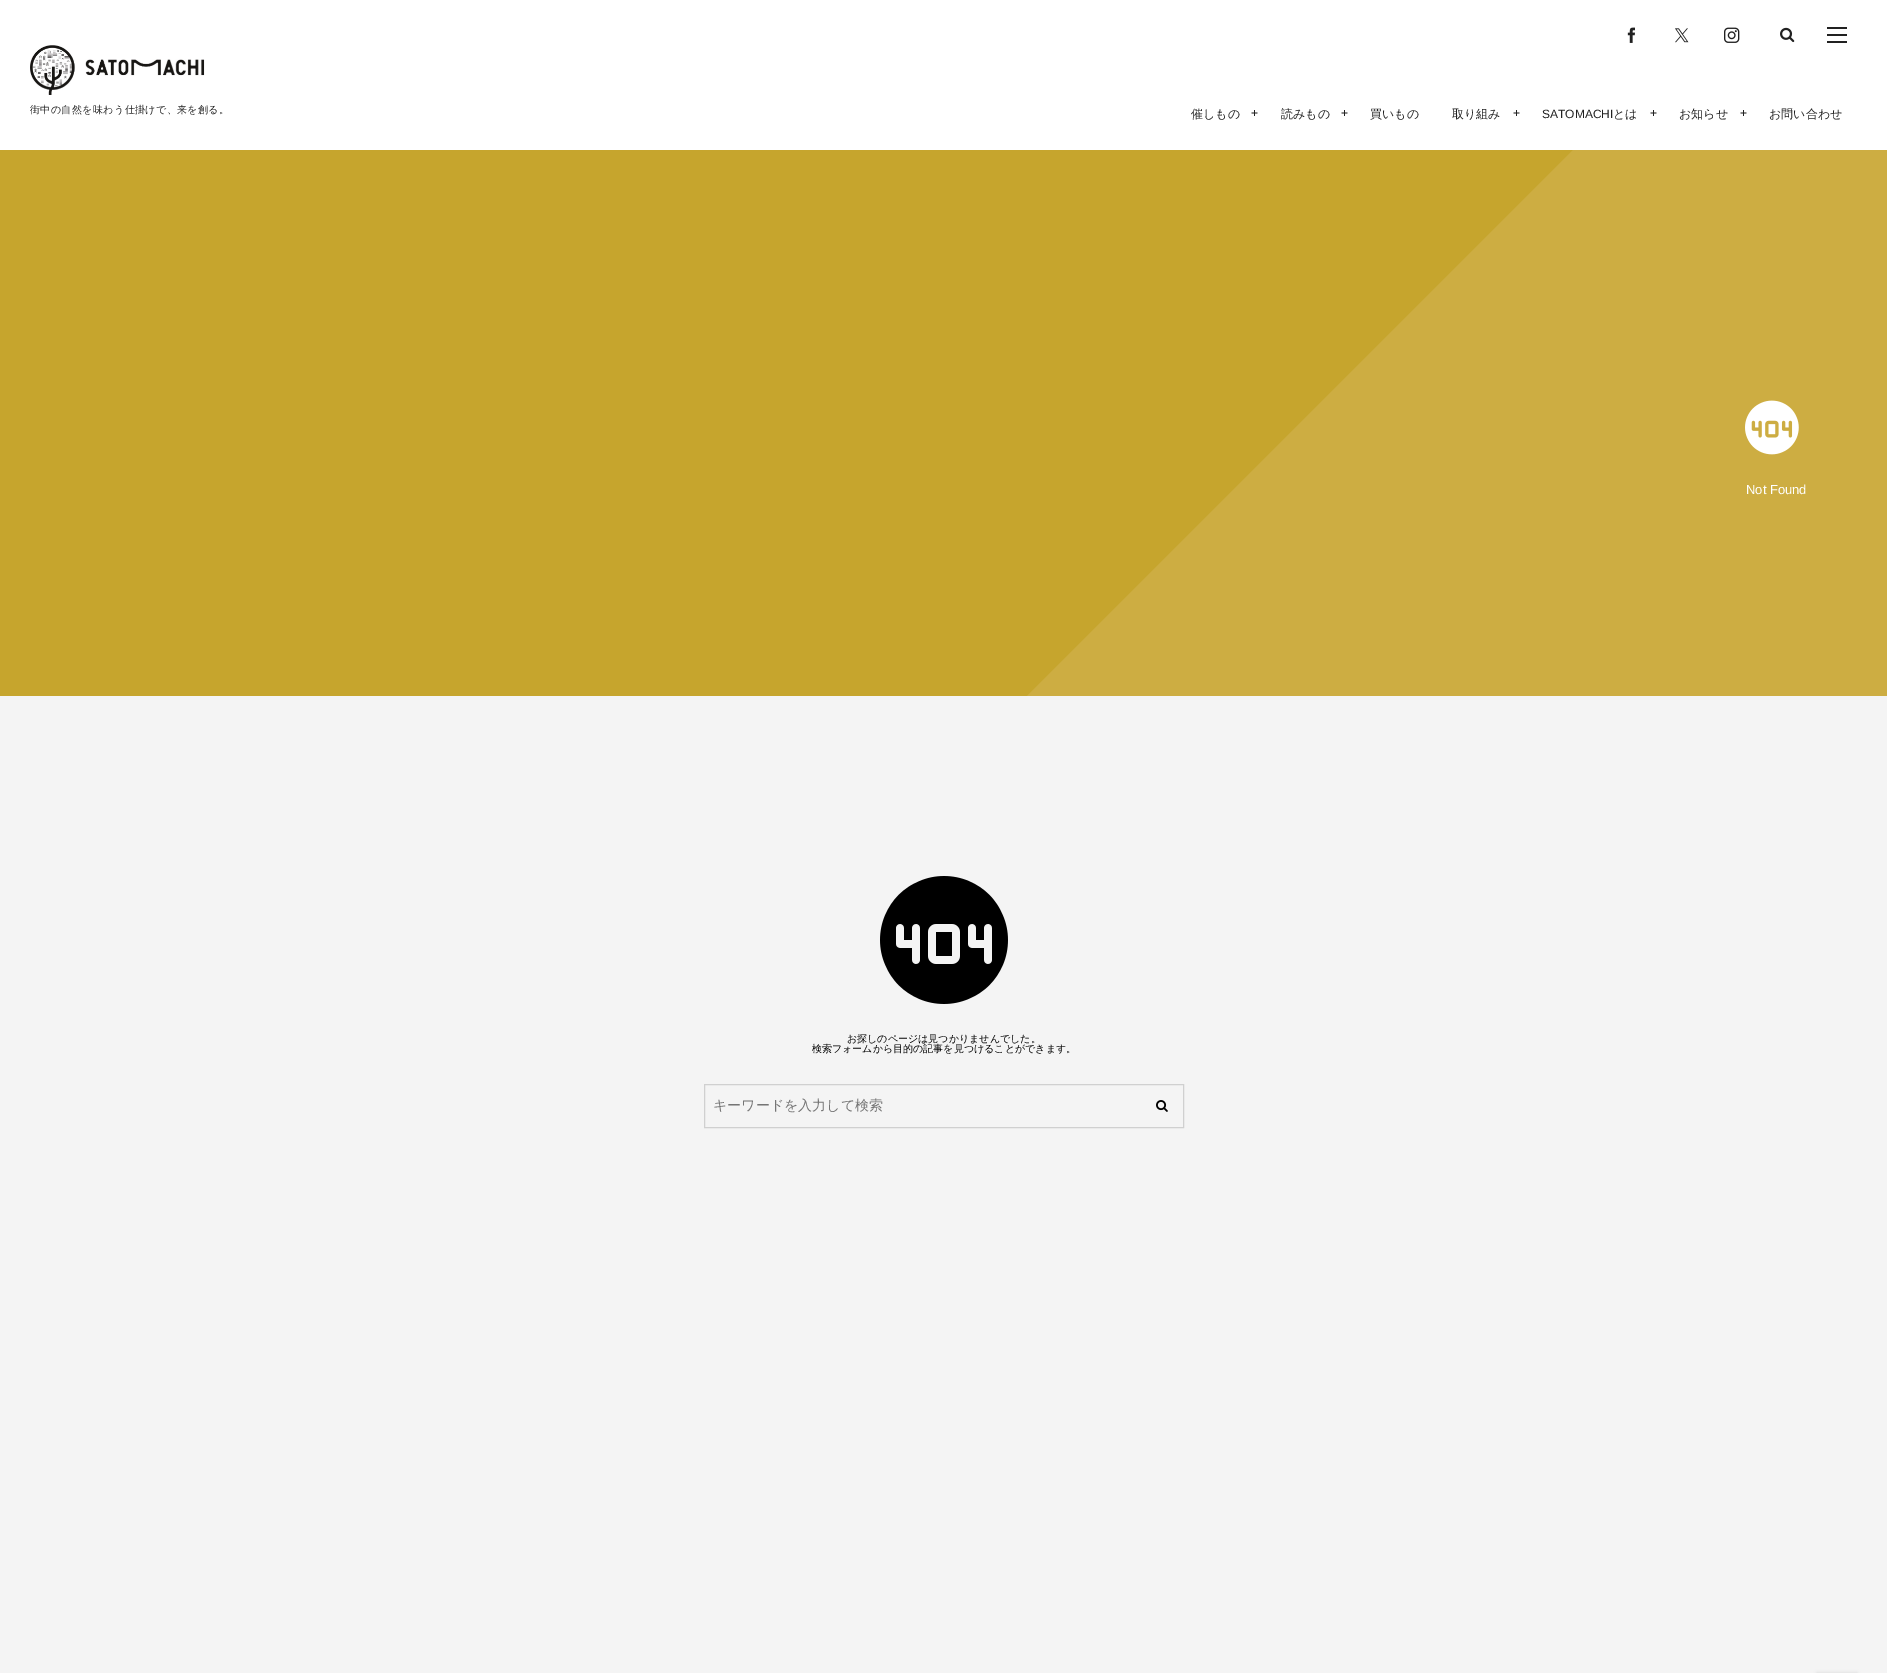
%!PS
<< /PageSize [1887 1673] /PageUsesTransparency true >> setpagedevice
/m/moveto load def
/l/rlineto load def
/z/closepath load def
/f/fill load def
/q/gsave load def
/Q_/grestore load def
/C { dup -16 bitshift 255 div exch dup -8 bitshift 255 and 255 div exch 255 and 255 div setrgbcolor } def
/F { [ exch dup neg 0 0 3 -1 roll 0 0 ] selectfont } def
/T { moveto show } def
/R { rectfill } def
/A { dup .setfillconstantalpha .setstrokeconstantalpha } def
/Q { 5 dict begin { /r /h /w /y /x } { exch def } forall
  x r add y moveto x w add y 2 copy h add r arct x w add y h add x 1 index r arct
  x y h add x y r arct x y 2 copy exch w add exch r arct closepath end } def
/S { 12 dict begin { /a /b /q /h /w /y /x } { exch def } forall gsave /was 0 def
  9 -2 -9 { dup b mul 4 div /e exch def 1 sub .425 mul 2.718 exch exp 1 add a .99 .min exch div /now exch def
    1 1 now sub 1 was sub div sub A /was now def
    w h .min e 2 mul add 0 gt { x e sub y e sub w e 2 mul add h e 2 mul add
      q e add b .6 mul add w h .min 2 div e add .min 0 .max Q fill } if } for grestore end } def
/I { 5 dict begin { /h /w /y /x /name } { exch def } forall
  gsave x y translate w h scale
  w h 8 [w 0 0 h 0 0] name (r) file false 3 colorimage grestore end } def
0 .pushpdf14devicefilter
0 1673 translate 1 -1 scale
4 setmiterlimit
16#F4F4F4 C
0 0 1887 1673 R
16#FFFFFF C
0 0 1887 150 R
(1.rgb) 30 45 175 50 I
/WenQuanYiZenHei-Medium 10 F
16#212121 C
30 113 m .4 0 (街中の自然を味わう仕掛けで、来を創る。) ashow
(2.rgb) 1627 27 8 16 I
(3.rgb) 1675 28 14 15 I
(4.rgb) 1724 27 16 16 I
(5.rgb) 1780 27 15 16 I
1827 27 20 2 R
1827 34 20 2 R
1827 41 20 2 R
/WenQuanYiZenHei-Medium 12 F
(催しもの) 1191 118 T
/LiberationSans-Regular 12 F
(+) 1251 117 T
/WenQuanYiZenHei-Medium 12 F
(読みもの) 1281 118 T
/LiberationSans-Regular 12 F
(+) 1341 117 T
/WenQuanYiZenHei-Medium 12 F
(買いもの) 1370 118 T
(取り組み) 1452 118 T
/LiberationSans-Regular 12 F
(+) 1513 117 T
(SATOMACHI) 1542 118 T
/WenQuanYiZenHei-Medium 12 F
(とは) 1613 118 T
/LiberationSans-Regular 12 F
(+) 1650 117 T
/WenQuanYiZenHei-Medium 12 F
(お知らせ) 1679 118 T
/LiberationSans-Regular 12 F
(+) 1740 117 T
/WenQuanYiZenHei-Medium 12 F
(お問い合わせ) 1769 118 T
16#C6A52D C
0 150 1573 546 R
q
0 150 1887 546 rectclip
16#CDAD42 C
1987 -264 m 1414 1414 l -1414 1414 l -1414 -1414 l z f
Q_
(6.rgb) 1745 400 54 55 I
/LiberationSans-Regular 13 F
16#FFFFFF C
(Not Found) 1746 494 T
(7.rgb) 880 876 128 128 I
/WenQuanYiZenHei-Medium 10 F
16#000000 C
(お探しのページは見つかりませんでした。) 847 1042 T
(検索フォームから目的の記事を見つけることができます。) 812 1052 T
16#D0D0D0 C
704.5 1084.5 479 43 rectstroke
/WenQuanYiZenHei-Medium 14 F
16#757575 C
(キーワードを入力して検索) 713 1110 T
(8.rgb) 1156 1100 12 12 I
1817 1673 40 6 0 2 .24 S
.poppdf14devicefilter showpage
